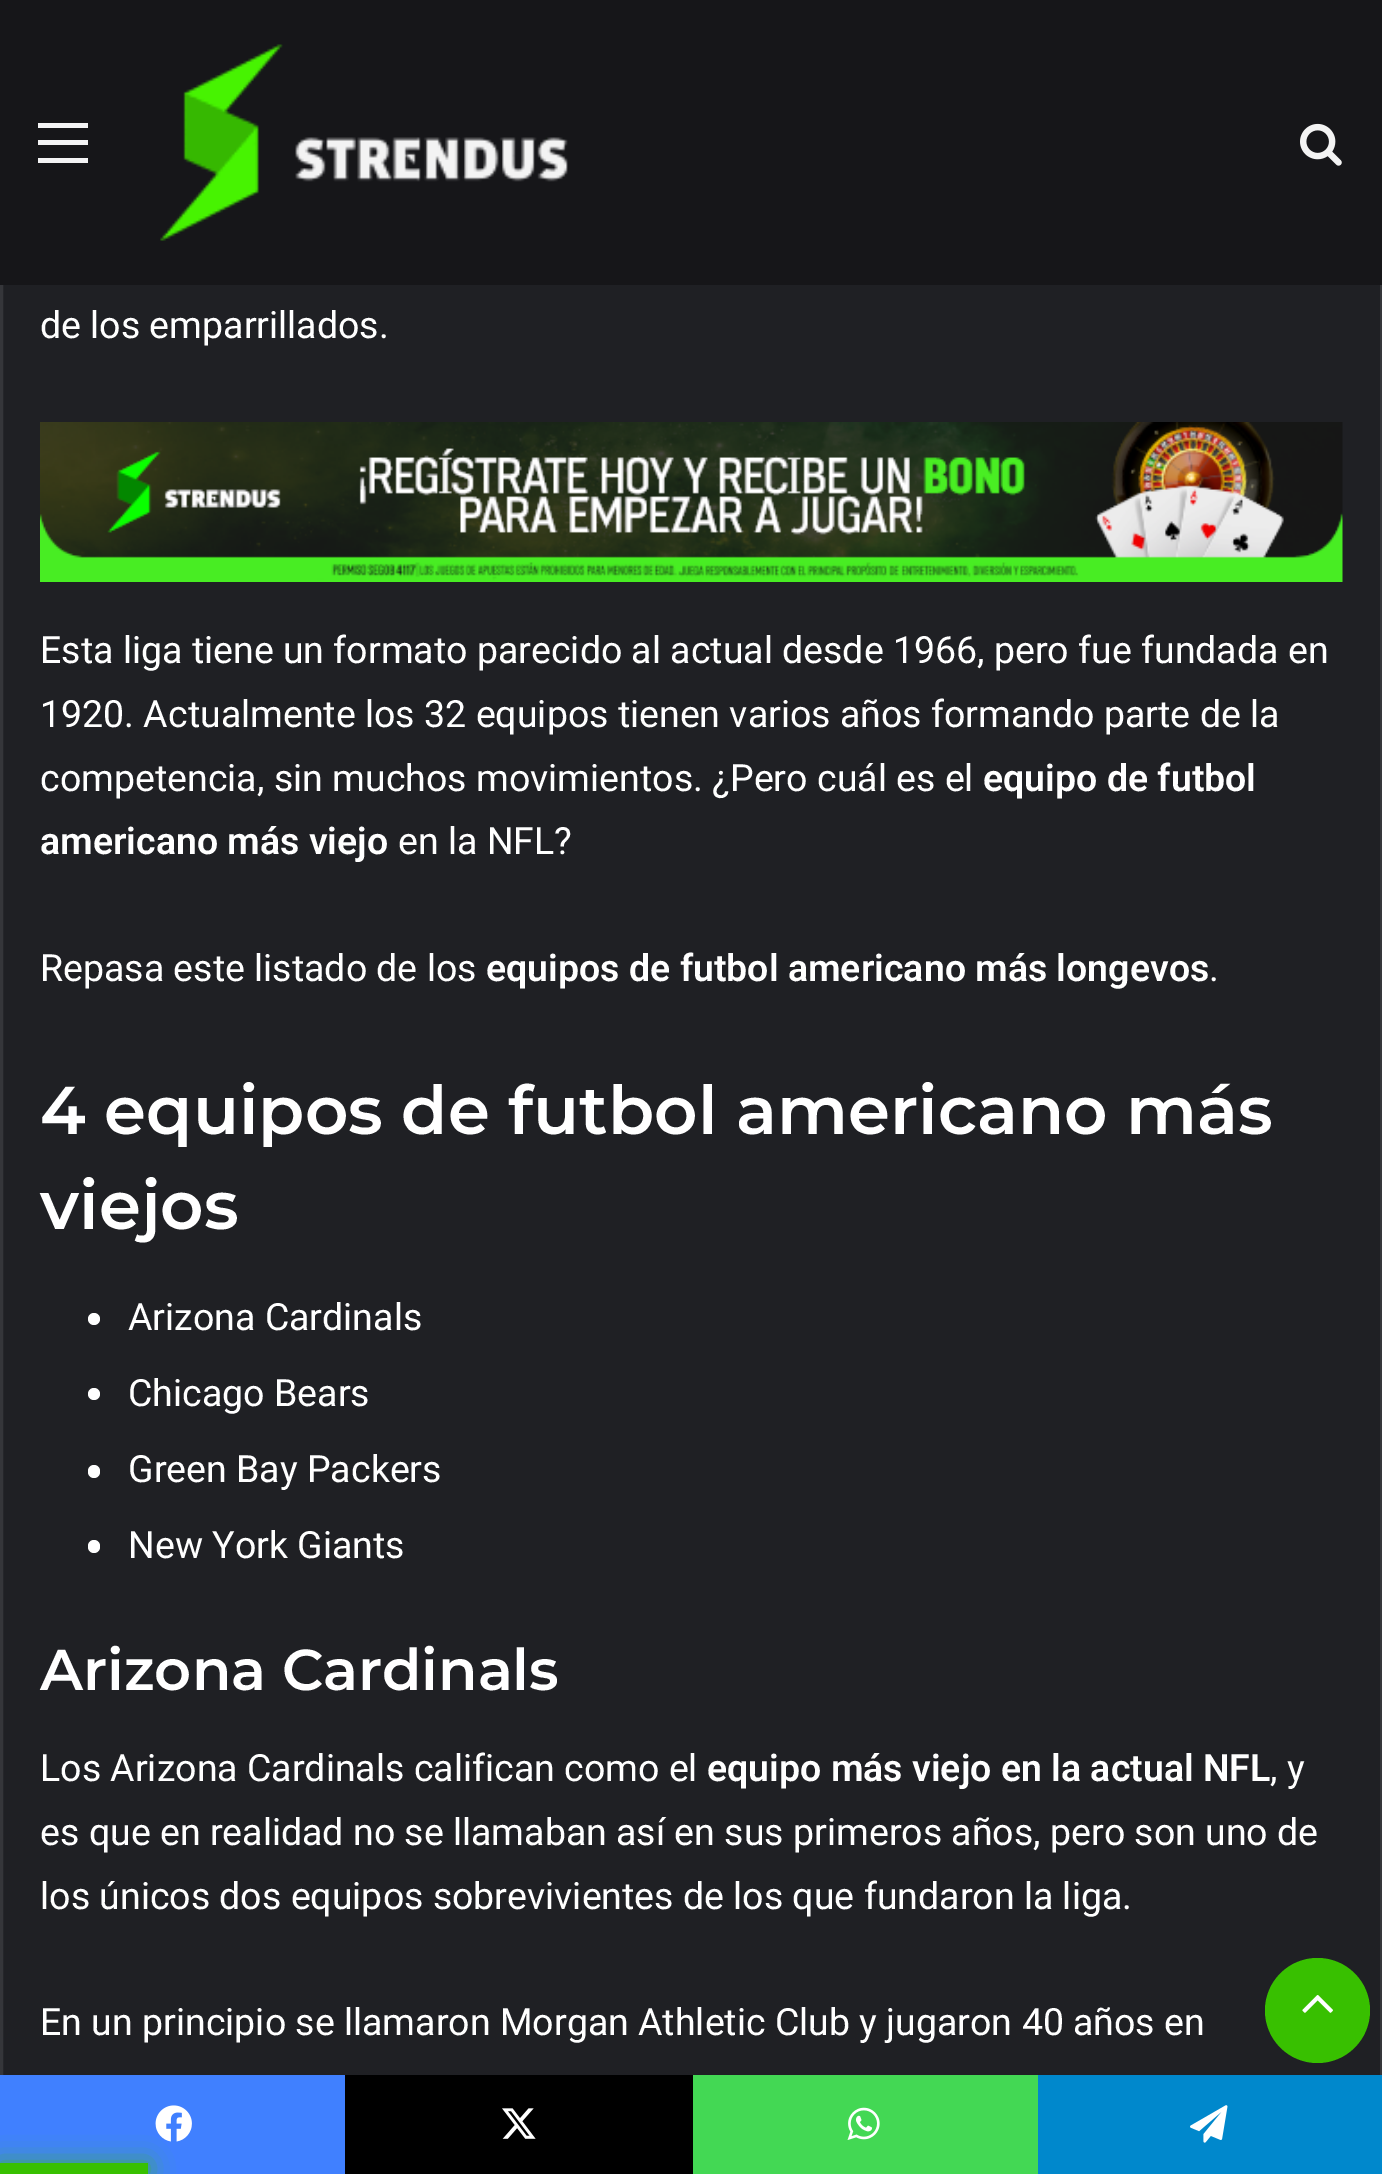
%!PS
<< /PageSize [1382 2174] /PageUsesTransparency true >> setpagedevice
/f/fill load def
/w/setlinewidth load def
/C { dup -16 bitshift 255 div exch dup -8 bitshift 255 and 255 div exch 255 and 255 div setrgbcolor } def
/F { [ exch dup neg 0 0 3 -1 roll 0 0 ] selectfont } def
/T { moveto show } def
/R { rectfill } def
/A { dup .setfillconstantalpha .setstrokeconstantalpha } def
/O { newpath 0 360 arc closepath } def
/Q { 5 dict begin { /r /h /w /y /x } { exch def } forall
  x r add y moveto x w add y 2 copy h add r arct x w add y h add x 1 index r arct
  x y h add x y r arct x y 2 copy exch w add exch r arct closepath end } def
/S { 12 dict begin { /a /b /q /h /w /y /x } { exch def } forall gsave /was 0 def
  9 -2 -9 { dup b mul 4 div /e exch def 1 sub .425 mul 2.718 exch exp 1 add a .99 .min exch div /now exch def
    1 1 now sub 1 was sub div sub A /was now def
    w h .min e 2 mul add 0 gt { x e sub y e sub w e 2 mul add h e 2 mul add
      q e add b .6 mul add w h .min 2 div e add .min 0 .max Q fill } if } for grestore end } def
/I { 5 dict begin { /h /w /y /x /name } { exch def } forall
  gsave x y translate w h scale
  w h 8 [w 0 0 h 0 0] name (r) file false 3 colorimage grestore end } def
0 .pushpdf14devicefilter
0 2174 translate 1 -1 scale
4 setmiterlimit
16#1F2024 C
0 0 1382 2174 R
16#35363A C
3 w
1.5 -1.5 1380 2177 rectstroke
16#161619 C
0 0 1382 285 R
16#F3F3F4 C
38 140 50 5 R
38 123 50 5 R
38 158 50 5 R
(1.rgb) 160 44 408 197 I
(2.rgb) 1300 123 42 43 I
/Roboto-Regular 37.5 F
16#FFFFFF C
(de los emparrillados.) 40 338 T
(3.rgb) 40 422 1303 160 I
(Esta liga tiene un formato parecido al actual desde 1966, pero fue fundada en) 40 663 T
(1920. Actualmente los 32 equipos tienen varios años formando parte de la) 40 727 T
(competencia, sin muchos movimientos. ¿Pero cuál es el) 40 791 T
/Roboto-SemiBold 37.5 F
(equipo de futbol) 983 791 T
(americano más viejo) 40 854 T
/Roboto-Regular 37.5 F
(en la NFL?) 398 854 T
(Repasa este listado de los) 40 981 T
/Roboto-SemiBold 37.5 F
(equipos de futbol americano más longevos) 486 981 T
/Roboto-Regular 37.5 F
(.) 1209 981 T
/Montserrat-SemiBold 67.5 F
(4 equipos de futbol americano más) 40 1134 T
(viejos) 40 1229 T
94 1319 6 O f
/Roboto-Regular 37.5 F
(Arizona Cardinals) 128 1330 T
94 1394 6 O f
(Chicago Bears) 128 1406 T
88 1465 12 13 6 Q f
(Green Bay Packers) 128 1482 T
88 1540 12 13 6 Q f
(New York Giants) 128 1558 T
/Montserrat-SemiBold 57.5 F
(Arizona Cardinals) 40 1690 T
/Roboto-Regular 37.5 F
(Los Arizona Cardinals califican como el) 40 1781 T
/Roboto-SemiBold 37.5 F
(equipo más viejo en la actual NFL) 707 1781 T
/Roboto-Regular 37.5 F
(, y) 1270 1781 T
(es que en realidad no se llamaban así en sus primeros años, pero son uno de) 40 1845 T
(los únicos dos equipos sobrevivientes de los que fundaron la liga.) 40 1909 T
(En un principio se llamaron Morgan Athletic Club y jugaron 40 años en) 40 2035 T
16#38C000 C
1317.5 2010.5 52.5 O f
(4.rgb) 1302 1995 31 18 I
16#4080FF C
0 2075 345 99 R
(5.rgb) 155 2105 37 37 I
16#000000 C
345 2075 348 99 R
(6.rgb) 502 2108 34 31 I
16#43D854 C
693 2075 345 99 R
(7.rgb) 847 2107 33 33 I
16#0088CC C
1038 2075 344 99 R
(8.rgb) 1190 2105 38 38 I
16#38C000 C
0 2163 148 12 0 12.5 .7 S
0 2163 148 11 R
.poppdf14devicefilter showpage
